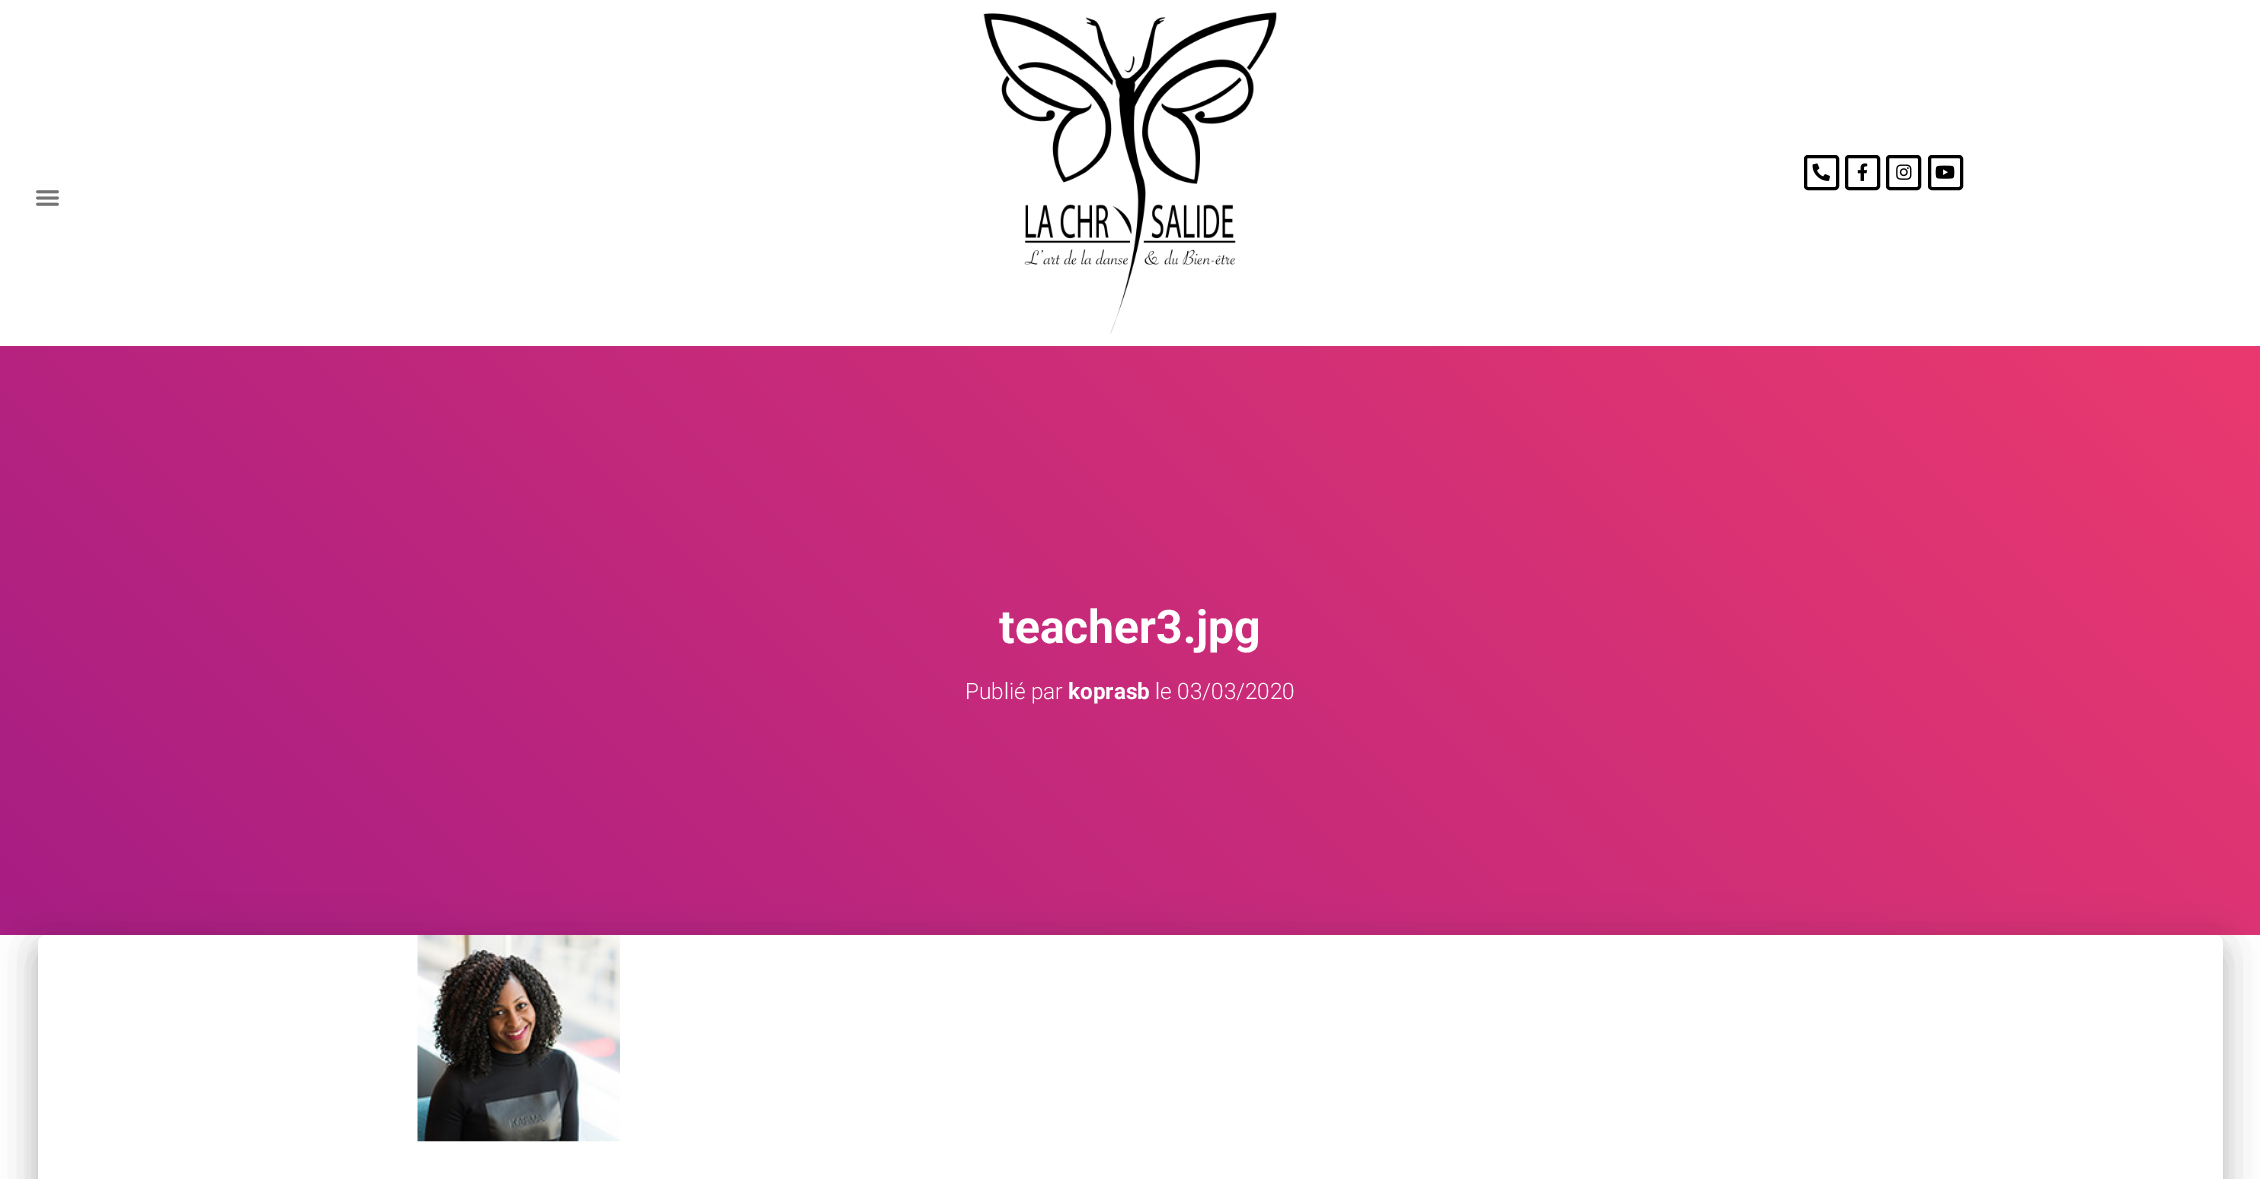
%!PS
<< /PageSize [2260 1179] /PageUsesTransparency true >> setpagedevice
/m/moveto load def
/l/rlineto load def
/c/rcurveto load def
/z/closepath load def
/f/fill load def
/s/stroke load def
/q/gsave load def
/Q_/grestore load def
/w/setlinewidth load def
/C { dup -16 bitshift 255 div exch dup -8 bitshift 255 and 255 div exch 255 and 255 div setrgbcolor } def
/F { [ exch dup neg 0 0 3 -1 roll 0 0 ] selectfont } def
/T { moveto show } def
/R { rectfill } def
/A { dup .setfillconstantalpha .setstrokeconstantalpha } def
/Q { 5 dict begin { /r /h /w /y /x } { exch def } forall
  x r add y moveto x w add y 2 copy h add r arct x w add y h add x 1 index r arct
  x y h add x y r arct x y 2 copy exch w add exch r arct closepath end } def
/S { 12 dict begin { /a /b /q /h /w /y /x } { exch def } forall gsave /was 0 def
  9 -2 -9 { dup b mul 4 div /e exch def 1 sub .425 mul 2.718 exch exp 1 add a .99 .min exch div /now exch def
    1 1 now sub 1 was sub div sub A /was now def
    w h .min e 2 mul add 0 gt { x e sub y e sub w e 2 mul add h e 2 mul add
      q e add b .6 mul add w h .min 2 div e add .min 0 .max Q fill } if } for grestore end } def
/I { 5 dict begin { /h /w /y /x /name } { exch def } forall
  gsave x y translate w h scale
  w h 8 [w 0 0 h 0 0] name (r) file false 3 colorimage grestore end } def
0 .pushpdf14devicefilter
0 1179 translate 1 -1 scale
4 setmiterlimit
16#FFFFFF C
0 0 2260 1179 R
(1.rgb) 983 12 294 322 I
16#000000 C
3 w
1805.5 156.5 32 32 2.5 Q s
(2.rgb) 1812 163 18 18 I
1846.5 156.5 32 32 2.5 Q s
(3.rgb) 1857 163 11 18 I
1887.5 156.5 32 32 2.5 Q s
(4.rgb) 1896 164 16 16 I
1929.5 156.5 32 32 2.5 Q s
(5.rgb) 1935 165 20 14 I
(6.rgb) 36 190 23 16 I
q 0 346 m 2260 0 l 0 589 l -2260 0 l z clip newpath
<< /ShadingType 2 /ColorSpace /DeviceRGB /Coords [418 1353 1842 -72] /Extend [true true] /Function << /FunctionType 2 /Domain [0 1] /C0 [.659 .114 .518] /C1 [.918 .224 .435] /N 1 >> >> shfill Q_
/Roboto-Bold 46.25 F
16#FFFFFF C
(teacher3.jpg) 999 643 T
/Roboto-Light 22.5 F
(Publié par) 965 699 T
/Roboto-Bold 22.5 F
(koprasb) 1068 699 T
/Roboto-Light 22.5 F
(le 03/03/2020) 1155 699 T
16#000000 C
44 951 2172 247 1 6 .2 S
31 936 2198 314 14 19 .12 S
35 953 2190 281 10 15 .14 S
16#FFFFFF C
46 935 m 2169 0 l 4.5 0 8 3.5 8 8 c 0 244 l -2185 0 l 0 -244 l 0 -4.5 3.5 -8 8 -8 c z f
(7.rgb) 417 935 203 207 I
.poppdf14devicefilter showpage
